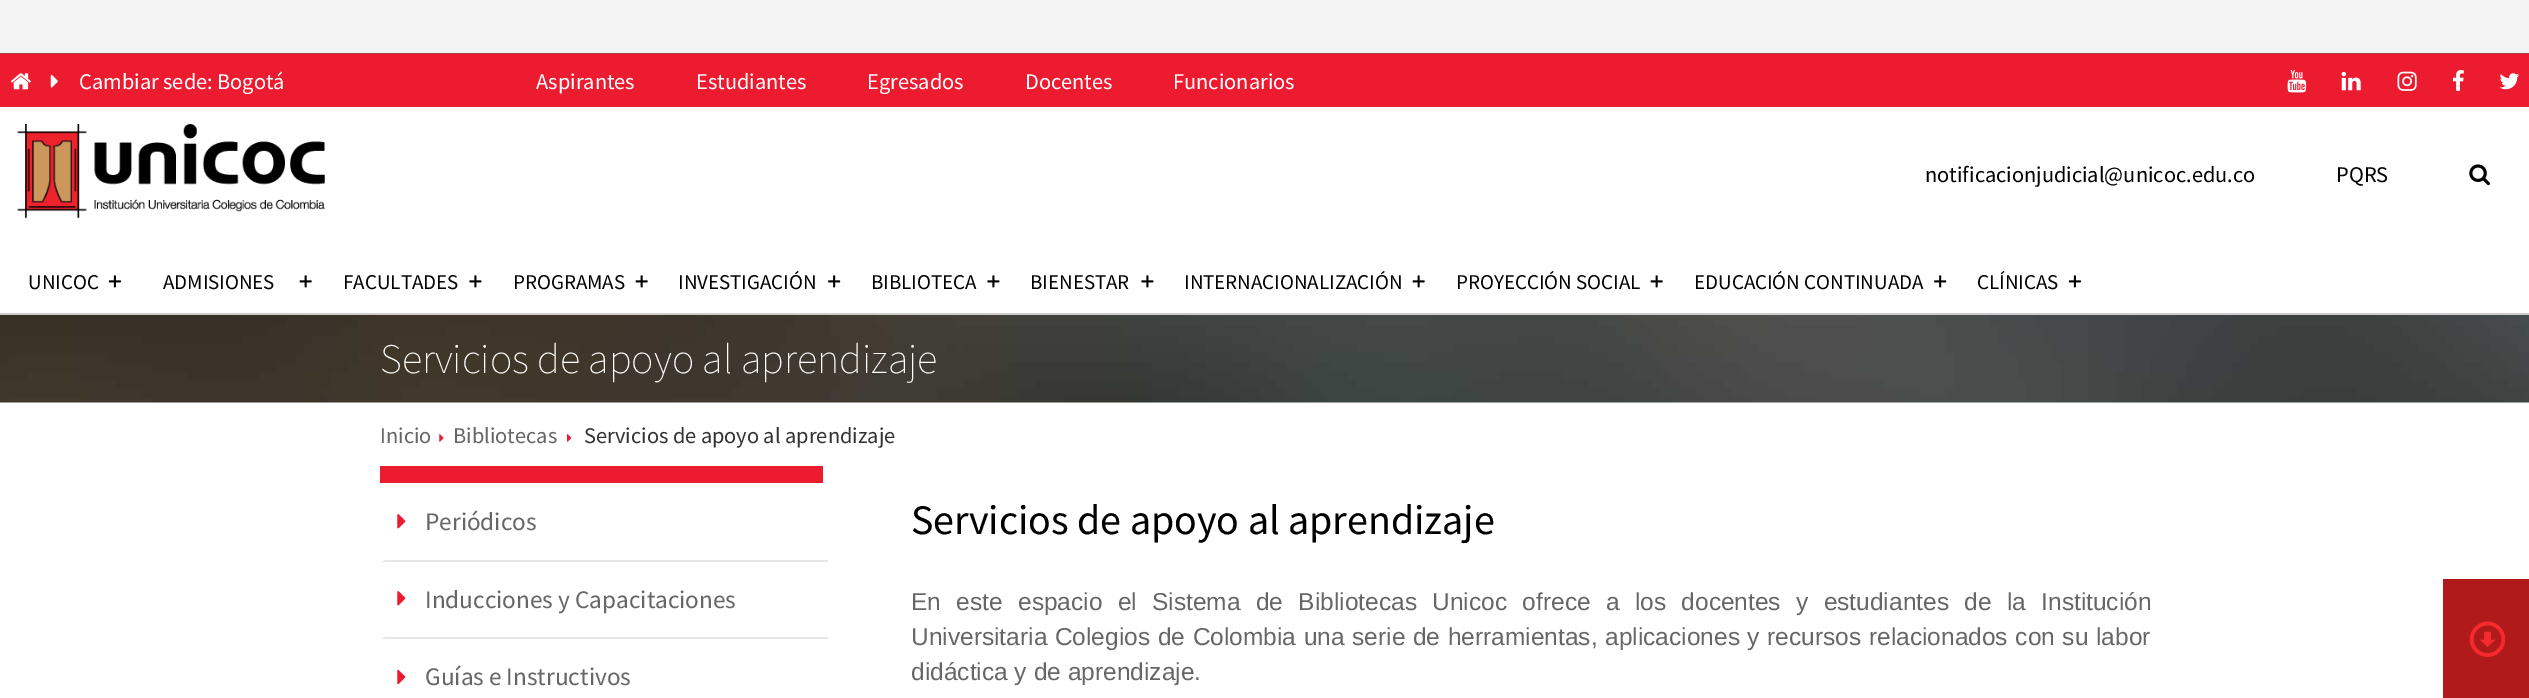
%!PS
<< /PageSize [2529 698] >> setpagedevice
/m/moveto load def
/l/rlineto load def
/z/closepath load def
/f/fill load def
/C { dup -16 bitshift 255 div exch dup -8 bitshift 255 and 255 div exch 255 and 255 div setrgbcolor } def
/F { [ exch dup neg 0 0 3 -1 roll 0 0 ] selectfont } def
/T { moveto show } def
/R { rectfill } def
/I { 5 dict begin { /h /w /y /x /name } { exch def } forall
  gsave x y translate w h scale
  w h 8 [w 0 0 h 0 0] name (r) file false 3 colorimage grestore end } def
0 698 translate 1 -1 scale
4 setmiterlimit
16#FFFFFF C
0 0 2529 698 R
16#F3F3F3 C
0 0 2529 53 R
16#A84044 C
0 53 2529 1 R
16#ED1B2F C
0 54 2529 53 R
(1.rgb) 10 73 21 17 I
(2.rgb) 50 74 8 14 I
/SourceSansPro-Regular 22.4 F
16#FFFFFF C
(Cambiar sede: Bogotá) 79 89 T
(Aspirantes) 536 89 T
(Estudiantes) 696 89 T
(Egresados) 867 89 T
(Docentes) 1025 89 T
(Funcionarios) 1173 89 T
(3.rgb) 2287 70 20 23 I
(4.rgb) 2341 71 20 20 I
(5.rgb) 2397 71 20 20 I
(6.rgb) 2452 70 12 21 I
(7.rgb) 2499 73 21 17 I
16#CCCCCC C
0 313 2529 2 R
(8.rgb) 17 124 308 95 I
16#000000 C
(notificacionjudicial@unicoc.edu.co) 1925 182 T
(PQRS) 2336 182 T
(9.rgb) 2469 164 21 22 I
/SourceSansPro-Regular 21 F
(UNICOC) 28 289 T
(10.rgb) 108 275 13 13 I
(ADMISIONES) 163 289 T
(11.rgb) 299 275 13 13 I
(FACULTADES) 343 289 T
(12.rgb) 469 275 13 13 I
(PROGRAMAS) 513 289 T
(11.rgb) 635 275 13 13 I
(INVESTIGACIÓN) 678 289 T
(13.rgb) 828 275 13 13 I
(BIBLIOTECA) 871 289 T
(12.rgb) 987 275 13 13 I
(BIENESTAR) 1030 289 T
(12.rgb) 1141 275 13 13 I
(INTERNACIONALIZACIÓN) 1184 289 T
(11.rgb) 1412 275 13 13 I
(PROYECCIÓN SOCIAL) 1456 289 T
(11.rgb) 1650 275 13 13 I
(EDUCACIÓN CONTINUADA) 1694 289 T
(13.rgb) 1934 275 13 13 I
(CLÍNICAS) 1977 289 T
(10.rgb) 2068 275 13 13 I
16#B11A1A C
2443 579 86 119 R
(14.rgb) 2469 621 37 36 I
(15.rgb) 0 315 2529 88 I
/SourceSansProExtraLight-ExtraLight 42 F
16#FFFFFF C
(Servicios de apoyo al aprendizaje) 380 373 T
/SourceSansPro-Regular 22.4 F
16#666666 C
(Inicio) 380 443 T
(16.rgb) 439 434 5 8 I
(Bibliotecas) 453 443 T
(17.rgb) 567 434 5 8 I
16#333333 C
(Servicios de apoyo al aprendizaje) 584 443 T
16#ED1B2F C
380 466 443 17 R
16#E6E6E6 C
828 562 m -448 0 l 5 -2 l 443 0 l z f
16#FFFFFF C
380 562 m 0 -79 l 5 0 l 0 77 l z f
(18.rgb) 397 514 9 15 I
/SourceSansPro-Regular 25.25 F
16#666666 C
(Periódicos) 425 530 T
16#E6E6E6 C
828 639 m -448 0 l 5 -2 l 443 0 l z f
16#FFFFFF C
380 639 m 0 -77 l 5 0 l 0 75 l z f
(18.rgb) 397 591 9 15 I
16#666666 C
(Inducciones y Capacitaciones) 425 608 T
(19.rgb) 397 669 9 16 I
(Guías e Instructivos) 425 685 T
/SourceSansPro-Regular 42 F
16#000000 C
(Servicios de apoyo al aprendizaje) 911 534 T
/LiberationSans-Regular 24.5 F
16#666666 C
911 610 m 8.5 0 32 (En este espacio el Sistema de Bibliotecas Unicoc ofrece a los docentes y estudiantes de la Institución) widthshow
911 645 m .8 0 32 (Universitaria Colegios de Colombia una serie de herramientas, aplicaciones y recursos relacionados con su labor) widthshow
(didáctica y de aprendizaje.) 911 680 T
showpage
